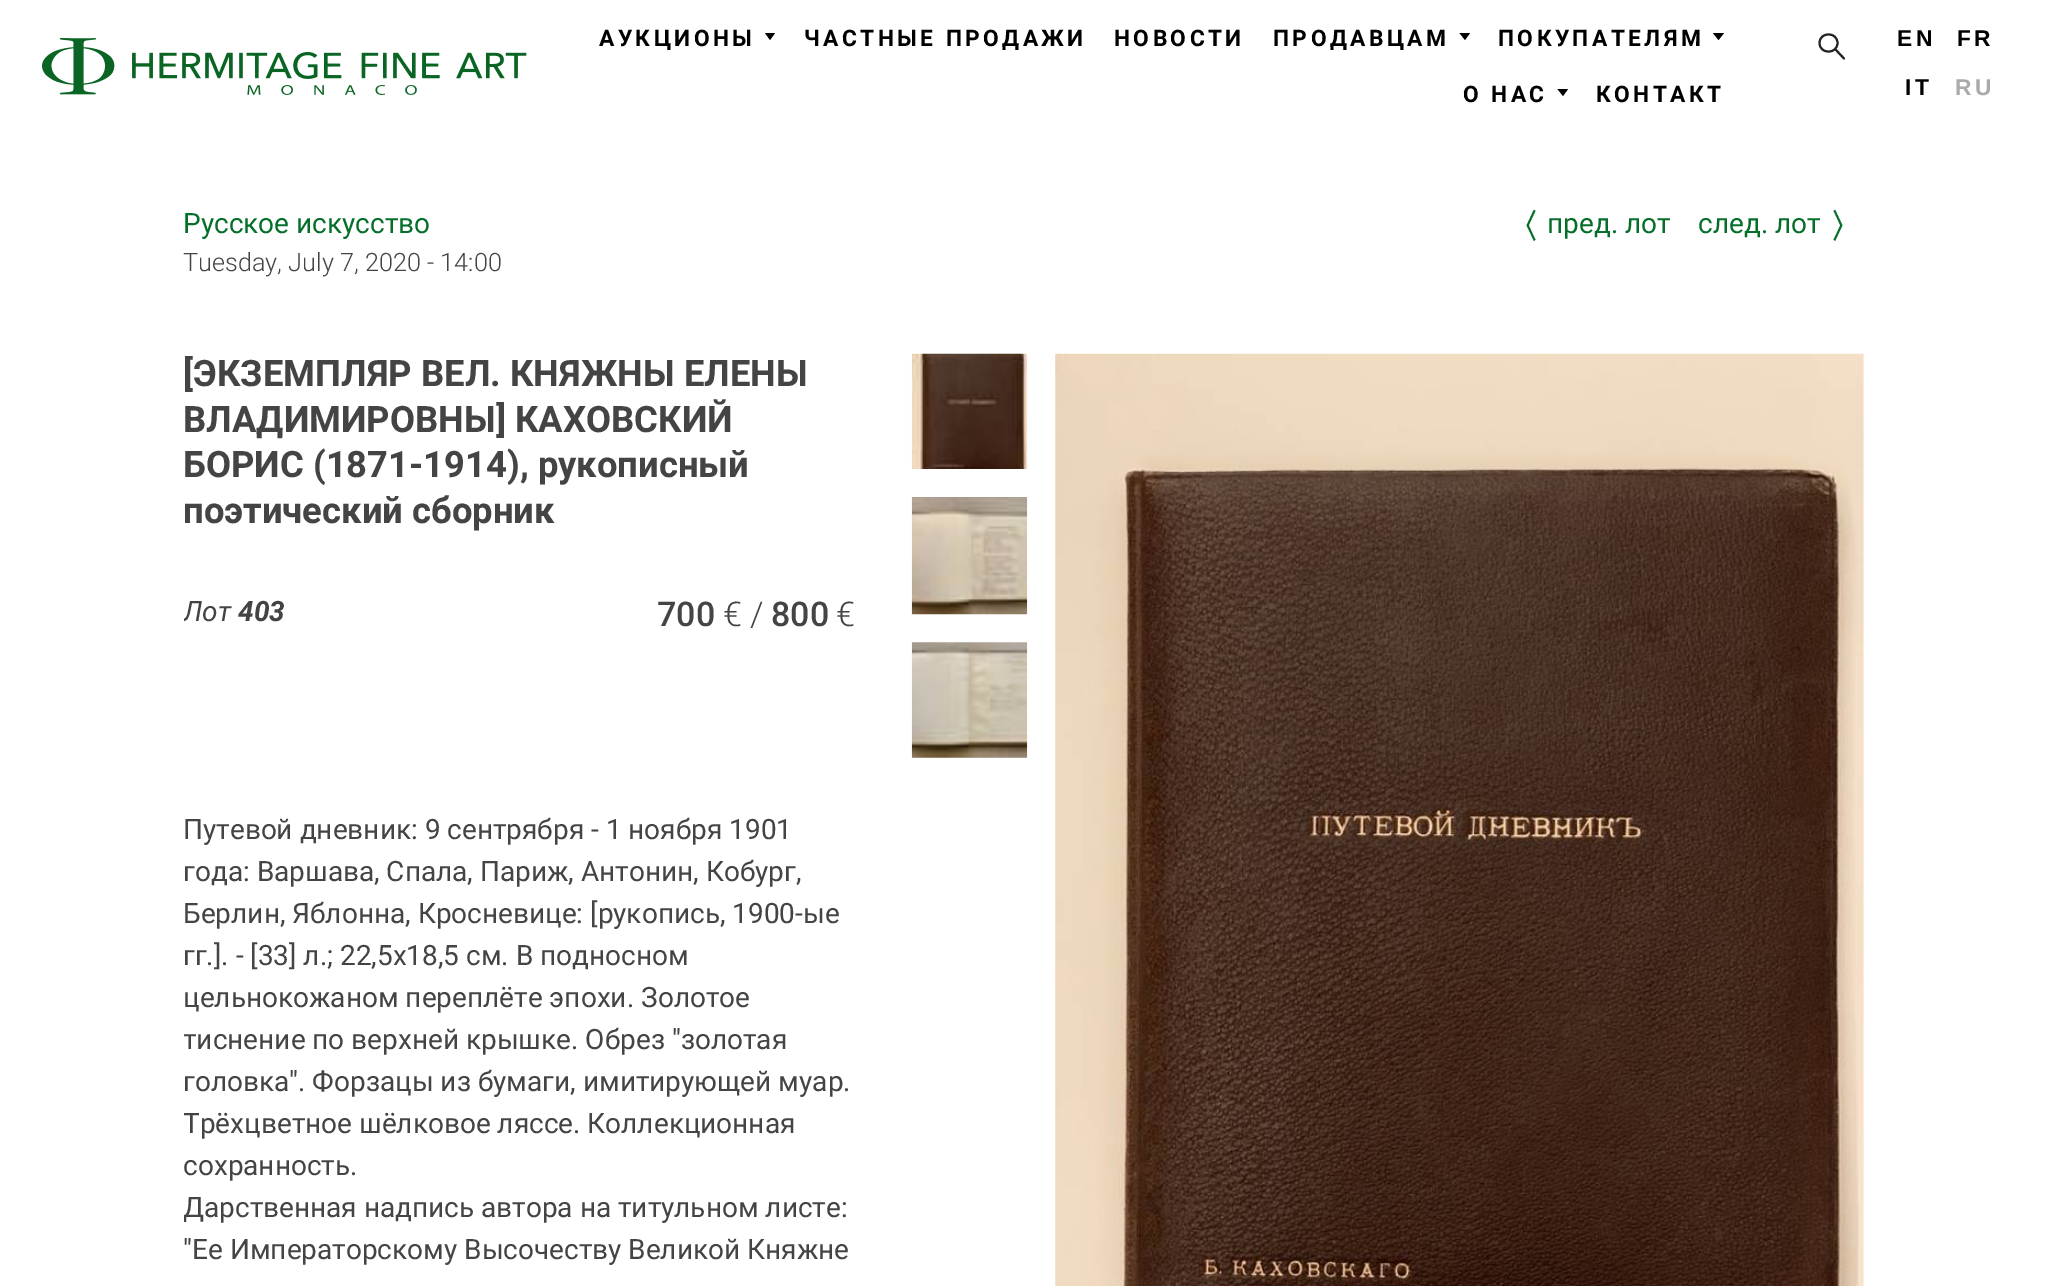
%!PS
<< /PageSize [2045 1286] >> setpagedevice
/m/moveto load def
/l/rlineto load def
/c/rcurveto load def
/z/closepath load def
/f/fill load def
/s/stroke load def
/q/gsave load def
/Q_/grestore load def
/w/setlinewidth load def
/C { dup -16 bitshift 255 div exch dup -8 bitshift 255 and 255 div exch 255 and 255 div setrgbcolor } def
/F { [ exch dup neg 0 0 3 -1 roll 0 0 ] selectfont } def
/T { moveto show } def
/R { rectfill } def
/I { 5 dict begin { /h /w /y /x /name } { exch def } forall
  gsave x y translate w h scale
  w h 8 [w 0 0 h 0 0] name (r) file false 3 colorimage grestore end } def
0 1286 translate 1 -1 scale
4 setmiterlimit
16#FFFFFF C
0 0 2045 1286 R
(1.rgb) 42 38 485 57 I
/Roboto-Bold 22.75 F
16#000000 C
599 46 m 3.4 0 (АУКЦИОНЫ) ashow
765 33 m 10 0 l -5 7 l z f
804 46 m 3.4 0 (ЧАСТНЫЕ ПРОДАЖИ) ashow
1114 46 m 3.4 0 (НОВОСТИ) ashow
1273 46 m 3.4 0 (ПРОДАВЦАМ) ashow
1459.5 33 m 10.5 0 l -5 7 l z f
1498 46 m 3.4 0 (ПОКУПАТЕЛЯМ) ashow
1713 33 m 11 0 l -5.5 7 l z f
1463 102 m 3.4 0 (О НАС) ashow
1557.5 89 m 10.5 0 l -5 7 l z f
1596 102 m 3.4 0 (КОНТАКТ) ashow
16#222222 C
2 w
1 setlinecap
1 setlinejoin
1836 50 m 8 8.5 l 1837.5 43 m 0 11.5 -18 11.5 -18 0 c 0 -11.5 18 -11.5 18 0 c z s
/LiberationSans-Bold 22.75 F
16#000000 C
1897 46 m 3.4 0 (EN) ashow
1957 46 m 3.4 0 (FR) ashow
1905 95 m 3.4 0 (IT) ashow
16#AAAAAA C
1955 95 m 3.4 0 (RU) ashow
/Roboto-Regular 28 F
16#056F29 C
(Русское искусство) 183 233 T
/Roboto-Light 25.25 F
16#444444 C
(Tuesday, July 7, 2020 - 14:00) 183 271 T
/WenQuanYiZenHei-Bold 34 F
16#056F29 C
(〈) 1505 238 T
/Roboto-Regular 28 F
(пред. лот) 1547 233 T
(след. лот) 1698 233 T
/WenQuanYiZenHei-Bold 34 F
(〉) 1829 238 T
/Roboto-Bold 36.4 F
16#444444 C
([ЭКЗЕМПЛЯР ВЕЛ. КНЯЖНЫ ЕЛЕНЫ) 183 386 T
(ВЛАДИМИРОВНЫ] КАХОВСКИЙ) 183 432 T
(БОРИС \(1871-1914\), рукописный) 183 477 T
(поэтический сборник) 183 523 T
(2.rgb) 911 353 117 116 I
(3.rgb) 911 497 117 118 I
(4.rgb) 911 642 117 116 I
(5.rgb) 1055 353 809 933 I
q
184 354 1680 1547 rectclip
/Roboto-Italic 28 F
(Лот) 183 621 T
Q_
/Roboto-BoldItalic 28 F
(403) 238 621 T
/Roboto-Medium 34 F
(700) 657 626 T
/Roboto-Light 34 F
(€ /) 723 626 T
/Roboto-Medium 34 F
(800) 771 626 T
/Roboto-Light 34 F
(€) 836 626 T
/Roboto-Regular 28 F
(Путевой дневник: 9 сентрября - 1 ноября 1901) 183 839 T
(года: Варшава, Спала, Париж, Антонин, Кобург,) 183 881 T
(Берлин, Яблонна, Кросневице: [рукопись, 1900-ые) 183 923 T
(гг.]. - [33] л.; 22,5х18,5 см. В подносном) 183 965 T
(цельнокожаном переплёте эпохи. Золотое) 183 1007 T
q
184 354 1680 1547 rectclip
(тиснение по верхней крышке. Обрез "золотая) 183 1049 T
Q_
(головка". Форзацы из бумаги, имитирующей муар.) 183 1091 T
q
184 354 1680 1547 rectclip
(Трёхцветное шёлковое ляссе. Коллекционная) 183 1133 T
Q_
(сохранность.) 183 1175 T
q
184 354 1680 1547 rectclip
(Дарственная надпись автора на титульном листе:) 183 1217 T
Q_
("Ее Императорскому Высочеству Великой Княжне) 183 1259 T
showpage
